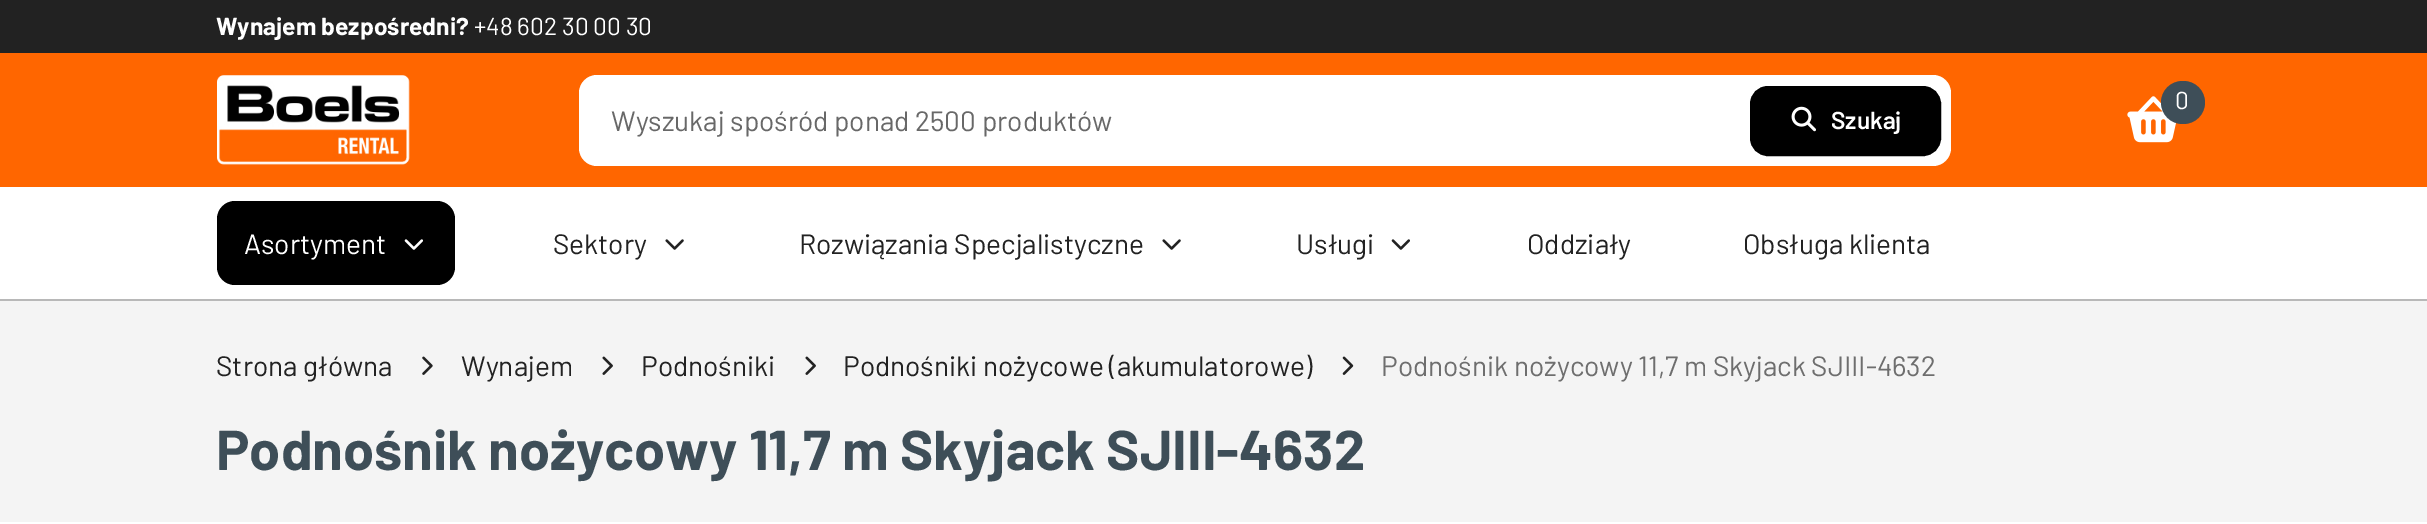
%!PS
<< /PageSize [2427 524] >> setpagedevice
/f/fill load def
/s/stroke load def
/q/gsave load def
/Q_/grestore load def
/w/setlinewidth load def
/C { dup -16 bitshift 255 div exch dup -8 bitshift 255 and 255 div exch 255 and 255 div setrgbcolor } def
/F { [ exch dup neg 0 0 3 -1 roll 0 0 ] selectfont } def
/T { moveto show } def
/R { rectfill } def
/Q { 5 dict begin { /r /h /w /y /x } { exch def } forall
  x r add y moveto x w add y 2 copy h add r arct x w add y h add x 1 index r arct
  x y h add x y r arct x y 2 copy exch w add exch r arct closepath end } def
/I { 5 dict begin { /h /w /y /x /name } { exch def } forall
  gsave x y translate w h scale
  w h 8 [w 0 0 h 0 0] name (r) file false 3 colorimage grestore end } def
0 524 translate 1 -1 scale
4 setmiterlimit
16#FFFFFF C
0 0 2427 524 R
16#222222 C
0 0 2427 53 R
/Barlow-Bold 24.5 F
16#FFFFFF C
(Wynajem bezpośredni?) 216 35 T
/Barlow-Regular 24.5 F
(+48 602 30 00 30) 474 35 T
16#FF6600 C
0 53 2427 134 R
(1.rgb) 217 75 193 90 I
(2.rgb) 2127 96 49 47 I
16#3E4E58 C
2161 81 44 43 21.5 Q f
16#FFFFFF C
(0) 2175 109 T
579 75 1372 91 18 Q f
/Barlow-Regular 28 F
16#686868 C
(Wyszukaj spośród ponad 2500 produktów) 611 131 T
16#000000 C
1752 88 187 66 16 Q q f Q_
4 w
s
(3.rgb) 1791 106 25 26 I
/Barlow-SemiBold 24.5 F
16#FFFFFF C
(Szukaj) 1831 129 T
16#B8B8B8 C
0 299 2427 2 R
16#000000 C
217 201 238 84 18 Q f
/Barlow-Regular 28 F
16#FFFFFF C
(Asortyment) 244 254 T
(4.rgb) 404 239 19 11 I
16#222222 C
(Sektory) 553 254 T
(5.rgb) 665 239 19 11 I
(Rozwiązania Specjalistyczne) 799 254 T
(5.rgb) 1162 239 19 11 I
(Usługi) 1296 254 T
(6.rgb) 1391 239 19 11 I
(Oddziały) 1527 254 T
(Obsługa klienta) 1743 254 T
16#F4F4F4 C
0 301 2427 221 R
16#222222 C
(Strona główna) 216 376 T
(7.rgb) 422 356 11 19 I
(Wynajem) 461 376 T
(8.rgb) 602 356 11 19 I
(Podnośniki) 641 376 T
(8.rgb) 805 356 11 19 I
(Podnośniki nożycowe \(akumulatorowe\)) 843 376 T
(9.rgb) 1342 356 12 19 I
16#6E6E6E C
(Podnośnik nożycowy 11,7 m Skyjack SJIII-4632) 1381 376 T
/Barlow-Bold 56 F
16#3E4E58 C
(Podnośnik nożycowy 11,7 m Skyjack SJIII-4632) 216 470 T
showpage
